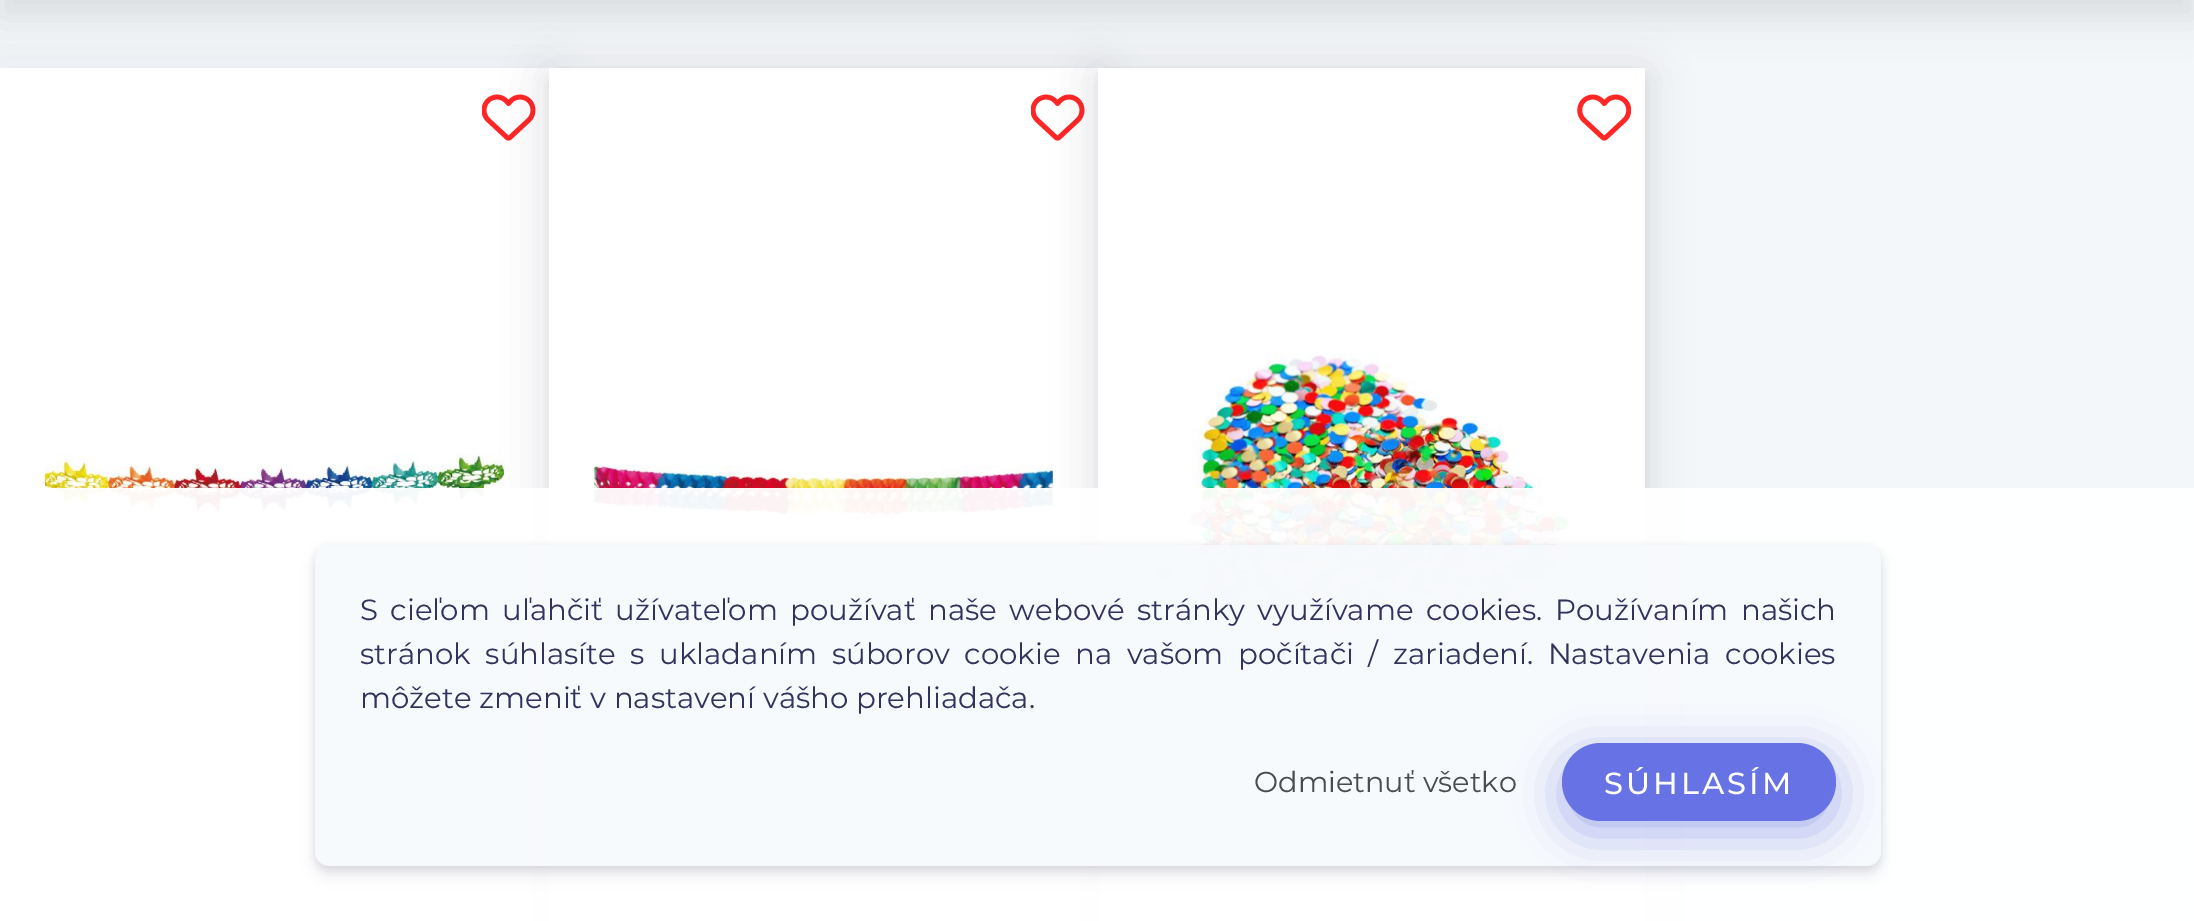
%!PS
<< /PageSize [2194 921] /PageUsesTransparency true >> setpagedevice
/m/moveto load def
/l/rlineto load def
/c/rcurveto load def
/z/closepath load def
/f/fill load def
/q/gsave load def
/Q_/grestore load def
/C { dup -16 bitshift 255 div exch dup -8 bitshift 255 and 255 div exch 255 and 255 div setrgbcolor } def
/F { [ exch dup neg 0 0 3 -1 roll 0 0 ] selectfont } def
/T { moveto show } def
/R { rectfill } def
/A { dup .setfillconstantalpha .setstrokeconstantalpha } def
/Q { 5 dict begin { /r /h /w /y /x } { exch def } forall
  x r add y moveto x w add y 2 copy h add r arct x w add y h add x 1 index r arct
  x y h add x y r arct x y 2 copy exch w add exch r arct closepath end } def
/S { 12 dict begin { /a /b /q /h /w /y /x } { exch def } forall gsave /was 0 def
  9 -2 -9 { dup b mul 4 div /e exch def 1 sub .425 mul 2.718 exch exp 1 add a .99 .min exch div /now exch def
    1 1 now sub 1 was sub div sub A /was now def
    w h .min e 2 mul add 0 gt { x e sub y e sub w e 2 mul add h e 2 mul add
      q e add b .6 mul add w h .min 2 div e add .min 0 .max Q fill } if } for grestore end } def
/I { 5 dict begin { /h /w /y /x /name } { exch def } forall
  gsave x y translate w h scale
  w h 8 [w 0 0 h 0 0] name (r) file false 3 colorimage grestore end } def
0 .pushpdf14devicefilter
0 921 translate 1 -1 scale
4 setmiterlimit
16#F4F7F9 C
0 0 2194 921 R
16#32325D C
0 72 549 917 0 22.5 .1 S
16#FFFFFF C
0 68 549 853 R
(1.rgb) 482 94 54 47 I
(2.rgb) 45 453 459 63 I
16#000000 C
549 79 549 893 0 17 .07 S
16#32325D C
549 72 549 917 0 22.5 .1 S
16#FFFFFF C
549 68 549 853 R
(1.rgb) 1031 94 54 47 I
(3.rgb) 593 465 460 51 I
16#000000 C
1098 79 547 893 0 17 .07 S
16#32325D C
1098 72 547 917 0 22.5 .1 S
16#FFFFFF C
1098 68 547 853 R
16#000000 C
0 -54 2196 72 0 18 .1 S
(4.rgb) 1577 94 54 47 I
(5.rgb) 1143 353 434 281 I
0.95 A
16#FFFFFF C
45 488 2149 433 R
q
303 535 m 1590 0 l 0 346 l -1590 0 l z 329 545 m 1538 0 l 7.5 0 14 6.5 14 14 c 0 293 l 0 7.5 -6.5 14 -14 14 c -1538 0 l -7.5 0 -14 -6.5 -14 -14 c 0 -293 l 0 -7.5 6.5 -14 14 -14 c z eoclip newpath
1 A
16#000000 C
315 547 1566 322 14 3.5 .08 S
Q_
q
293 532 m 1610 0 l 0 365 l -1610 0 l z 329 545 m 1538 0 l 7.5 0 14 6.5 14 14 c 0 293 l 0 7.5 -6.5 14 -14 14 c -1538 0 l -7.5 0 -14 -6.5 -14 -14 c 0 -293 l 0 -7.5 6.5 -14 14 -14 c z eoclip newpath
1 A
16#32325D C
315 554 1566 321 14 7 .11 S
Q_
0.9 A
16#F6F9FC C
315 545 1566 321 14 Q f
/Montserrat-Regular 29.25 F
1 A
16#32325D C
360 620 m 4.75 0 32 (S cieľom uľahčiť užívateľom používať naše webové stránky využívame cookies. Používaním našich) widthshow
360 664 m 6.9 0 32 (stránok súhlasíte s ukladaním súborov cookie na vašom počítači / zariadení. Nastavenia cookies) widthshow
(môžete zmeniť v nastavení vášho prehliadača.) 360 708 T
16#3A54D6 C
1562 754 274 79 39.5 22.5 .4 S
/Montserrat-Regular 28.75 F
16#4A4B4C C
(Odmietnuť všetko) 1254 792 T
16#6772E5 C
1562 743 274 78 39 Q f
/Montserrat-Medium 30.5 F
16#FFFFFF C
1604 794 m 3 0 (SÚHLASÍM) ashow
.poppdf14devicefilter showpage
